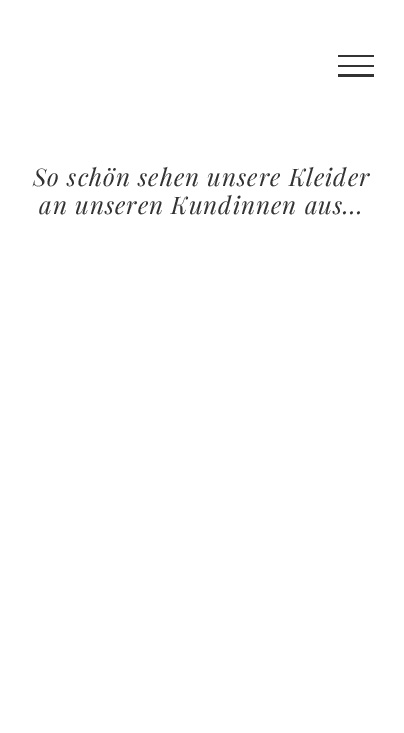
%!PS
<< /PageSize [404 733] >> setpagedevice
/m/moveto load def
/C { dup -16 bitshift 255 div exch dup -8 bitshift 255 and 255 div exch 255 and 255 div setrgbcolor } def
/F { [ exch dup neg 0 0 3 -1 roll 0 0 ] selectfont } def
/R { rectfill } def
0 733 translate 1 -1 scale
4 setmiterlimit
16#FFFFFF C
0 0 404 733 R
16#333333 C
338 55 36 2 R
338 65 36 2 R
338 74 36 3 R
/PlayfairDisplay-Italic 24.25 F
33 186 m 1 0 (So schön sehen unsere Kleider) ashow
39 214 m 1 0 (an unseren Kundinnen aus...) ashow
showpage
